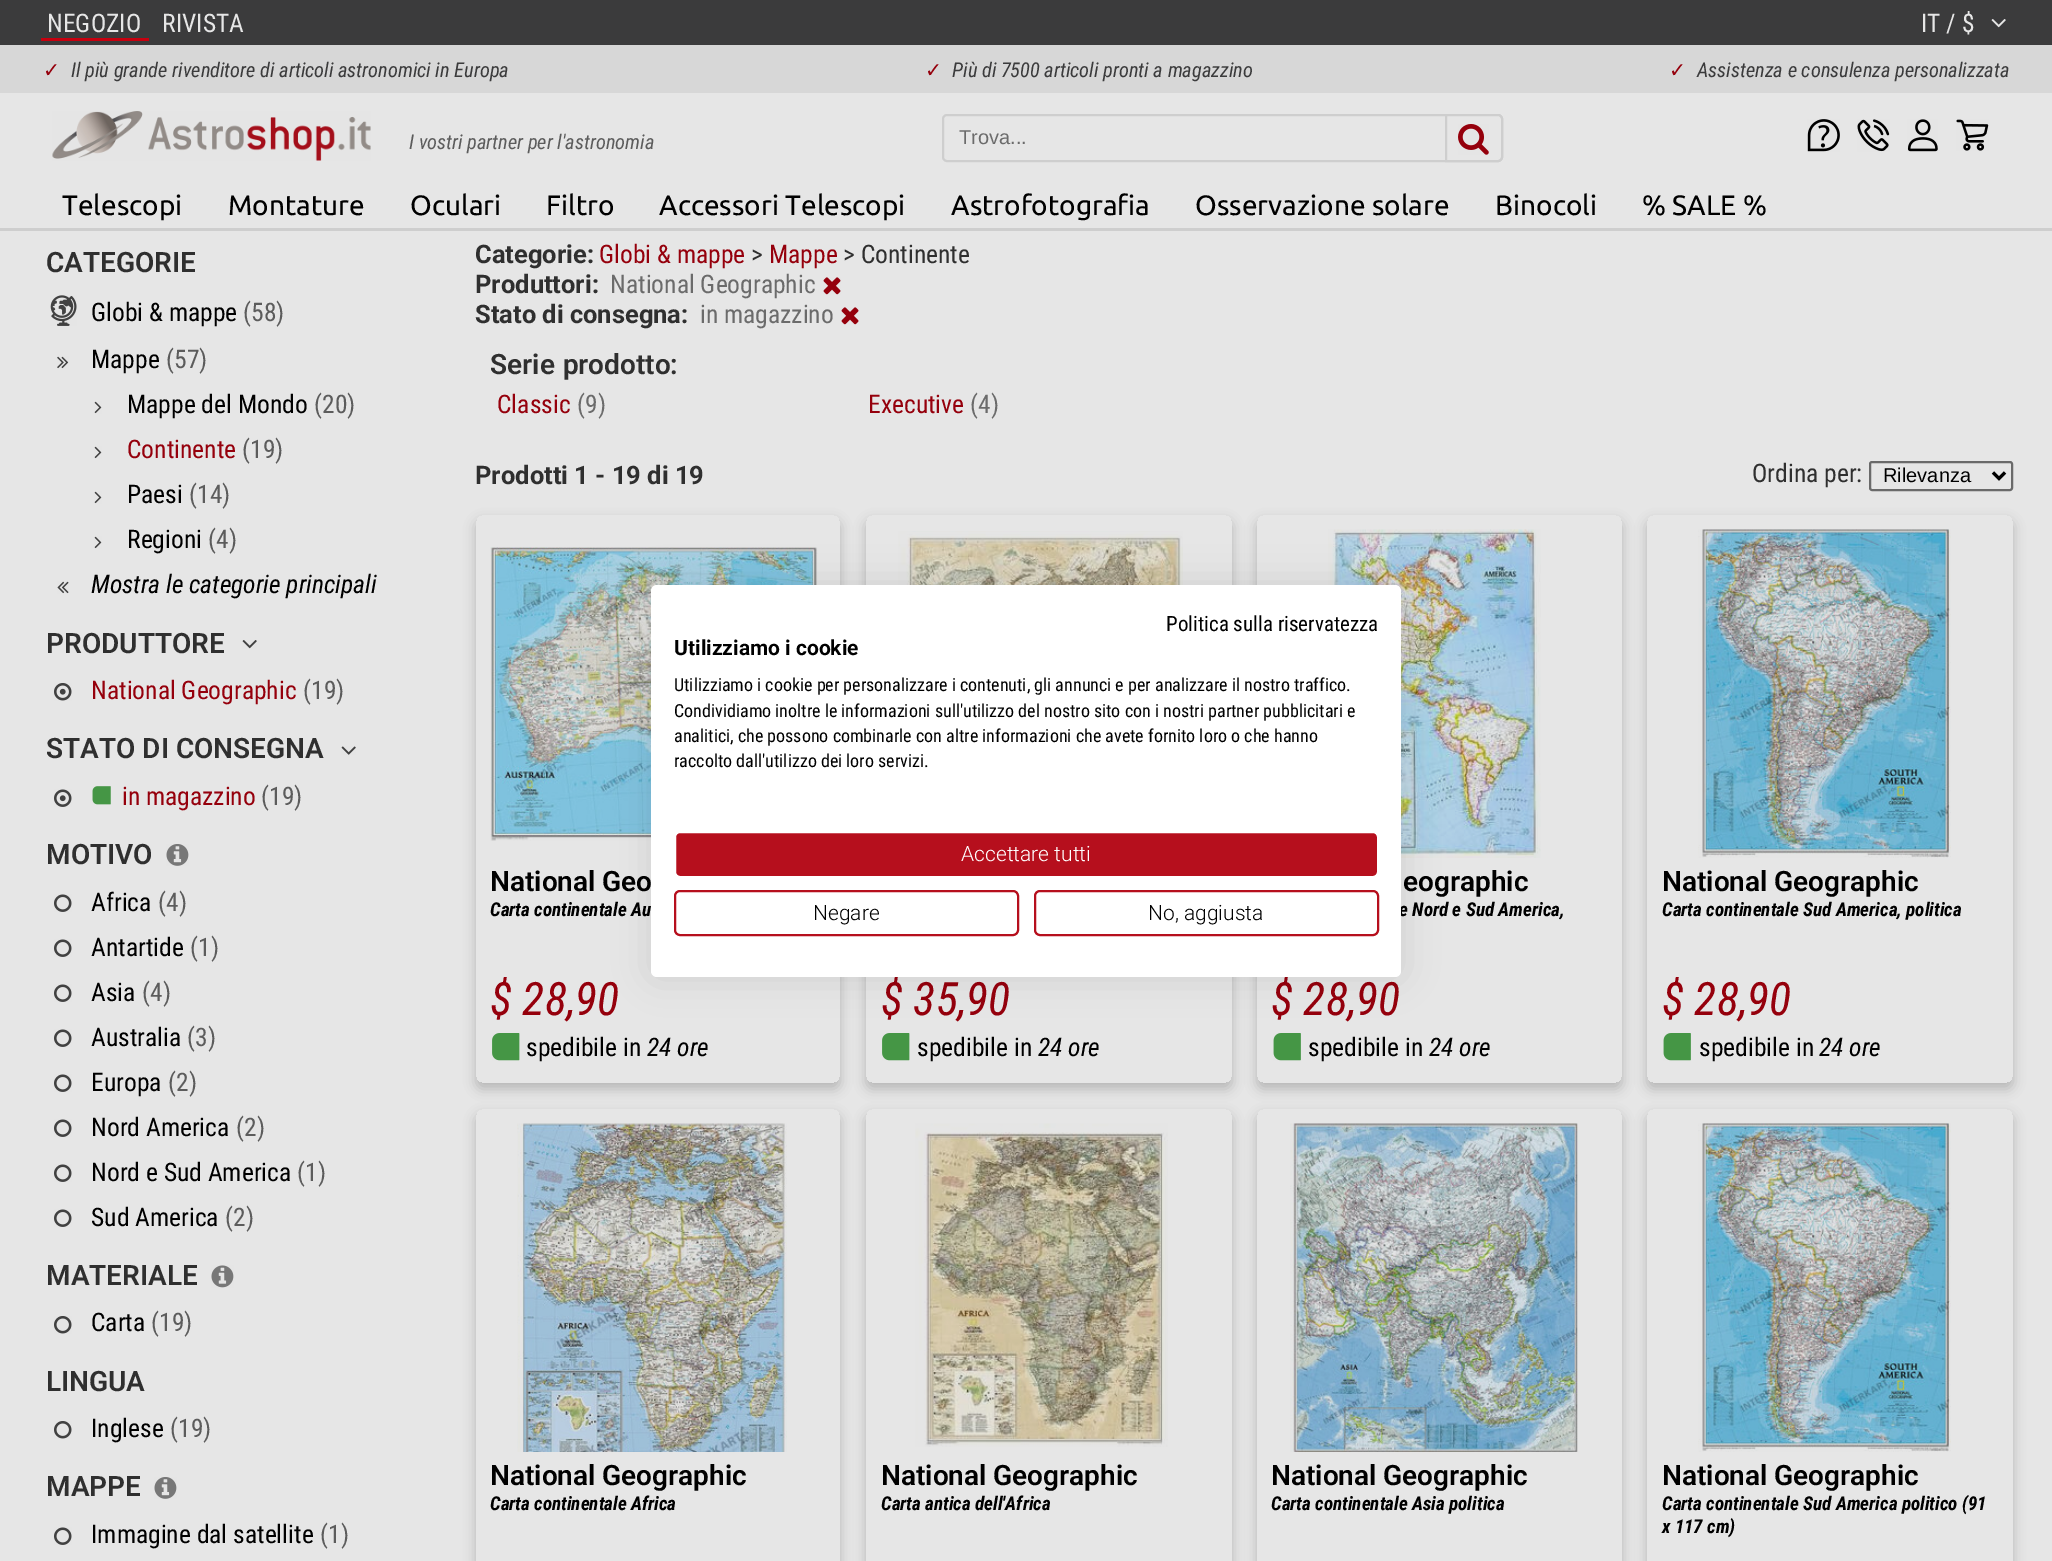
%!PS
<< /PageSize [2052 1561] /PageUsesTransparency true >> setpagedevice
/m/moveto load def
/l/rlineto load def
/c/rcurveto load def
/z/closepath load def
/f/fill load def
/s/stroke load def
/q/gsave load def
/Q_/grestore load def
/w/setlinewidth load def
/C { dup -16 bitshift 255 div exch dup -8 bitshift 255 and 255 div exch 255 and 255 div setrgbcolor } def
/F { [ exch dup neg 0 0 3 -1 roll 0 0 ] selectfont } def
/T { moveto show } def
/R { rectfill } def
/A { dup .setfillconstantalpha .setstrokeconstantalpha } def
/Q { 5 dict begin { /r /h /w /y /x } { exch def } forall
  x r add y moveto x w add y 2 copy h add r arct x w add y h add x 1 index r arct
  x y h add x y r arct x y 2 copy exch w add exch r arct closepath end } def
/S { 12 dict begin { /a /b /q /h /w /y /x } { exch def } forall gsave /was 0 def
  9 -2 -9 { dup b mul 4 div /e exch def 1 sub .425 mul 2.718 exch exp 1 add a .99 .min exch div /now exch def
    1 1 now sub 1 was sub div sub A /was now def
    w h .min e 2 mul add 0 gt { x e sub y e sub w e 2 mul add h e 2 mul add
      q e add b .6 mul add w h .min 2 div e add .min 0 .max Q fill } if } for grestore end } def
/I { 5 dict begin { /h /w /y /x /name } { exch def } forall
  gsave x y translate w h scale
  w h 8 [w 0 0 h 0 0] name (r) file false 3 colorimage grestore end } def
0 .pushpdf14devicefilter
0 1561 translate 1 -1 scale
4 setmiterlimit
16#E6E6E6 C
0 0 2052 1561 R
16#3B3B3C C
0 0 2052 45 R
/RobotoCondensed-Regular 25.5 F
16#E6E6E6 C
(NEGOZIO) 47 32 T
16#C7000F C
41 38 108 3 R
16#E6E6E6 C
(RIVISTA) 162 32 T
(IT / $) 1921 32 T
(1.rgb) 1991 19 15 9 I
16#D7D7D7 C
0 45 2052 48 R
/DejaVuSans-Regular 20.4 F
16#95000C C
(✓) 43 77 T
/RobotoCondensed-Italic 20.4 F
16#3B3B3C C
(Il più grande rivenditore di articoli astronomici in Europa) 71 77 T
/DejaVuSans-Regular 20.4 F
16#95000C C
(✓) 925 77 T
/RobotoCondensed-Italic 20.4 F
16#3B3B3C C
(Più di 7500 articoli pronti a magazzino) 952 77 T
/DejaVuSans-Regular 20.4 F
16#95000C C
(✓) 1669 77 T
/RobotoCondensed-Italic 20.4 F
16#3B3B3C C
(Assistenza e consulenza personalizzata) 1697 77 T
(2.rgb) 52 111 319 50 I
16#5C5C5C C
(I vostri partner per l'astronomia) 409 149 T
16#CECECE C
2 w
943 115 559 46 4 Q s
/LiberationSans-Regular 20 F
16#6B6B6B C
(Trova...) 959 144 T
16#E6E6E6 C
1446 115 m 52 0 l 2 0 4 2 4 4 c 0 38 l 0 2 -2 4 -4 4 c -52 0 l z q f Q_
16#CECECE C
s
(3.rgb) 1458 124 31 31 I
(4.rgb) 1807 119 33 33 I
(5.rgb) 1857 119 33 33 I
(6.rgb) 1907 119 31 33 I
(7.rgb) 1956 119 33 32 I
/Ubuntu-Regular 28 F
16#000000 C
(Telescopi) 62 215 T
(Montature) 228 215 T
(Oculari) 410 215 T
(Filtro) 546 215 T
(Accessori Telescopi) 659 215 T
(Astrofotografia) 951 215 T
(Osservazione solare) 1195 215 T
(Binocoli) 1495 215 T
(% SALE %) 1642 215 T
16#CECECE C
0 228 2052 3 R
/Roboto-SemiBold 28 F
16#2F2F2F C
(CATEGORIE) 46 272 T
(8.rgb) 50 295 27 31 I
/RobotoCondensed-Regular 25.5 F
16#000000 C
(Globi & mappe) 91 321 T
16#5C5C5C C
(\(58\)) 243 321 T
(9.rgb) 57 356 12 13 I
16#000000 C
(Mappe) 91 368 T
16#5C5C5C C
(\(57\)) 166 368 T
(10.rgb) 94 401 8 13 I
16#000000 C
(Mappe del Mondo) 127 413 T
16#5C5C5C C
(\(20\)) 314 413 T
(10.rgb) 94 446 8 13 I
16#95000C C
(Continente) 127 458 T
16#5C5C5C C
(\(19\)) 242 458 T
(10.rgb) 94 491 8 13 I
16#000000 C
(Paesi) 127 503 T
16#5C5C5C C
(\(14\)) 189 503 T
(10.rgb) 94 536 8 13 I
16#000000 C
(Regioni) 127 548 T
16#5C5C5C C
(\(4\)) 208 548 T
(11.rgb) 57 581 12 13 I
/RobotoCondensed-Italic 25.5 F
16#000000 C
(Mostra le categorie principali) 91 593 T
/Roboto-SemiBold 28 F
16#2F2F2F C
(PRODUTTORE) 46 653 T
(12.rgb) 242 640 15 9 I
(13.rgb) 54 683 18 18 I
/RobotoCondensed-Regular 25.5 F
16#95000C C
(National Geographic) 91 699 T
16#5C5C5C C
(\(19\)) 303 699 T
/Roboto-SemiBold 28 F
16#2F2F2F C
(STATO DI CONSEGNA) 46 758 T
(14.rgb) 341 746 15 9 I
(15.rgb) 54 789 18 18 I
(16.rgb) 92 786 19 19 I
/RobotoCondensed-Regular 25.5 F
16#95000C C
(in magazzino) 122 805 T
16#5C5C5C C
(\(19\)) 261 805 T
/Roboto-SemiBold 28 F
16#2F2F2F C
(MOTIVO) 46 864 T
(17.rgb) 166 844 23 22 I
(18.rgb) 54 894 18 18 I
/RobotoCondensed-Regular 25.5 F
16#000000 C
(Africa) 91 911 T
16#5C5C5C C
(\(4\)) 158 911 T
(18.rgb) 54 939 18 18 I
16#000000 C
(Antartide) 91 956 T
16#5C5C5C C
(\(1\)) 190 956 T
(18.rgb) 54 984 18 18 I
16#000000 C
(Asia) 91 1001 T
16#5C5C5C C
(\(4\)) 142 1001 T
(18.rgb) 54 1029 18 18 I
16#000000 C
(Australia) 91 1046 T
16#5C5C5C C
(\(3\)) 187 1046 T
(18.rgb) 54 1074 18 18 I
16#000000 C
(Europa) 91 1091 T
16#5C5C5C C
(\(2\)) 168 1091 T
(18.rgb) 54 1119 18 18 I
16#000000 C
(Nord America) 91 1136 T
16#5C5C5C C
(\(2\)) 236 1136 T
(18.rgb) 54 1164 18 18 I
16#000000 C
(Nord e Sud America) 91 1181 T
16#5C5C5C C
(\(1\)) 297 1181 T
(18.rgb) 54 1209 18 18 I
16#000000 C
(Sud America) 91 1226 T
16#5C5C5C C
(\(2\)) 225 1226 T
/Roboto-SemiBold 28 F
16#2F2F2F C
(MATERIALE) 46 1285 T
(19.rgb) 211 1265 23 23 I
(20.rgb) 54 1316 18 18 I
/RobotoCondensed-Regular 25.5 F
16#000000 C
(Carta) 91 1331 T
16#5C5C5C C
(\(19\)) 151 1331 T
/Roboto-SemiBold 28 F
16#2F2F2F C
(LINGUA) 46 1391 T
(20.rgb) 54 1421 18 18 I
/RobotoCondensed-Regular 25.5 F
16#000000 C
(Inglese) 91 1437 T
16#5C5C5C C
(\(19\)) 170 1437 T
/Roboto-SemiBold 28 F
16#2F2F2F C
(MAPPE) 46 1496 T
(17.rgb) 154 1477 23 22 I
(18.rgb) 54 1527 18 18 I
/RobotoCondensed-Regular 25.5 F
16#000000 C
(Immagine dal satellite) 91 1543 T
16#5C5C5C C
(\(1\)) 320 1543 T
/Roboto-Bold 25.5 F
16#2F2F2F C
(Categorie:) 475 263 T
/RobotoCondensed-Regular 25.5 F
16#95000C C
(Globi & mappe) 599 263 T
16#2F2F2F C
(>) 751 263 T
16#95000C C
(Mappe) 769 263 T
16#2F2F2F C
(> Continente) 843 263 T
/Roboto-Bold 25.5 F
(Produttori:) 475 293 T
/RobotoCondensed-Regular 25.5 F
16#6B6B6B C
(National Geographic) 610 293 T
(21.rgb) 823 277 18 18 I
/Roboto-Bold 25.5 F
16#2F2F2F C
(Stato di consegna:) 475 323 T
/RobotoCondensed-Regular 25.5 F
16#6B6B6B C
(in magazzino) 700 323 T
(21.rgb) 841 307 18 18 I
/Roboto-SemiBold 28 F
16#2F2F2F C
490 374 m 1 0 32 (Serie prodotto:) widthshow
/RobotoCondensed-Regular 25.5 F
16#95000C C
(Classic) 497 413 T
16#6B6B6B C
(\(9\)) 577 413 T
16#95000C C
(Executive) 868 413 T
16#6B6B6B C
(\(4\)) 970 413 T
/Roboto-Bold 25.5 F
16#2F2F2F C
(Prodotti 1 - 19 di 19) 475 484 T
/RobotoCondensed-Regular 25.5 F
(Ordina per:) 1752 482 T
16#6A6A6A C
1870 462 142 28 2 Q s
16#000000 C
3 w
1993 472.5 m 6 6 l 6 -6 l s
/LiberationSans-Regular 20 F
(Rilevanza) 1883 482 T
q
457 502 m 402 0 l 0 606 l -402 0 l z 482 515 m 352 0 l 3.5 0 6 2.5 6 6 c 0 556 l 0 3.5 -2.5 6 -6 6 c -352 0 l -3.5 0 -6 -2.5 -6 -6 c 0 -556 l 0 -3.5 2.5 -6 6 -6 c z eoclip newpath
476 521 364 568 6 6 .2 S
Q_
(22.rgb) 490 547 328 294 I
/Roboto-SemiBold 28 F
(National Geo) 490 891 T
/RobotoCondensed-BoldItalic 19.1 F
(Carta continentale Au) 490 916 T
/RobotoCondensed-Italic 46 F
16#95000C C
($ 28,90) 490 1015 T
(23.rgb) 492 1033 28 28 I
/RobotoCondensed-Regular 25.5 F
16#000000 C
(spedibile in) 526 1056 T
/RobotoCondensed-Italic 25.5 F
(24 ore) 647 1056 T
q
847 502 m 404 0 l 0 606 l -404 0 l z 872 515 m 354 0 l 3.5 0 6 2.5 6 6 c 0 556 l 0 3.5 -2.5 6 -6 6 c -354 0 l -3.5 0 -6 -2.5 -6 -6 c 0 -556 l 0 -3.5 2.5 -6 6 -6 c z eoclip newpath
866 521 366 568 6 6 .2 S
Q_
(24.rgb) 898 531 285 54 I
/RobotoCondensed-Italic 46 F
16#95000C C
($ 35,90) 881 1015 T
(23.rgb) 882 1033 28 28 I
/RobotoCondensed-Regular 25.5 F
16#000000 C
(spedibile in) 917 1056 T
/RobotoCondensed-Italic 25.5 F
(24 ore) 1038 1056 T
q
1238 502 m 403 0 l 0 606 l -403 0 l z 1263 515 m 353 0 l 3.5 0 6 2.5 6 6 c 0 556 l 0 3.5 -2.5 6 -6 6 c -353 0 l -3.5 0 -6 -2.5 -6 -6 c 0 -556 l 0 -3.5 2.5 -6 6 -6 c z eoclip newpath
1257 521 365 568 6 6 .2 S
Q_
(25.rgb) 1328 529 213 329 I
/Roboto-SemiBold 28 F
(eographic) 1403 891 T
/RobotoCondensed-BoldItalic 19.1 F
(e Nord e Sud America,) 1399 916 T
/RobotoCondensed-Italic 46 F
16#95000C C
($ 28,90) 1271 1015 T
(26.rgb) 1273 1033 28 28 I
/RobotoCondensed-Regular 25.5 F
16#000000 C
(spedibile in) 1308 1056 T
/RobotoCondensed-Italic 25.5 F
(24 ore) 1429 1056 T
q
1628 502 m 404 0 l 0 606 l -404 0 l z 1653 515 m 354 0 l 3.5 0 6 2.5 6 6 c 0 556 l 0 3.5 -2.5 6 -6 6 c -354 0 l -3.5 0 -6 -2.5 -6 -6 c 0 -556 l 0 -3.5 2.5 -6 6 -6 c z eoclip newpath
1647 521 366 568 6 6 .2 S
Q_
(27.rgb) 1698 529 253 329 I
/Roboto-SemiBold 28 F
(National Geographic) 1662 891 T
/RobotoCondensed-BoldItalic 19.1 F
(Carta continentale Sud America, politica) 1662 916 T
/RobotoCondensed-Italic 46 F
16#95000C C
($ 28,90) 1662 1015 T
(26.rgb) 1663 1033 28 28 I
/RobotoCondensed-Regular 25.5 F
16#000000 C
(spedibile in) 1699 1056 T
/RobotoCondensed-Italic 25.5 F
(24 ore) 1819 1056 T
q
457 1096 m 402 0 l 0 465 l -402 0 l z 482 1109 m 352 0 l 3.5 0 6 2.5 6 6 c 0 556 l 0 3.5 -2.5 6 -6 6 c -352 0 l -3.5 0 -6 -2.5 -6 -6 c 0 -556 l 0 -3.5 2.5 -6 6 -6 c z eoclip newpath
476 1115 364 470 6 6 .2 S
Q_
(28.rgb) 517 1123 270 329 I
/Roboto-SemiBold 28 F
(National Geographic) 490 1485 T
/RobotoCondensed-BoldItalic 19.1 F
(Carta continentale Africa) 490 1510 T
q
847 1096 m 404 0 l 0 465 l -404 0 l z 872 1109 m 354 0 l 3.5 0 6 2.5 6 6 c 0 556 l 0 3.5 -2.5 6 -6 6 c -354 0 l -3.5 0 -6 -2.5 -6 -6 c 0 -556 l 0 -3.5 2.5 -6 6 -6 c z eoclip newpath
866 1115 366 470 6 6 .2 S
Q_
(29.rgb) 915 1123 253 324 I
/Roboto-SemiBold 28 F
(National Geographic) 881 1485 T
/RobotoCondensed-BoldItalic 19.1 F
(Carta antica dell'Africa) 881 1510 T
q
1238 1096 m 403 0 l 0 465 l -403 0 l z 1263 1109 m 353 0 l 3.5 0 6 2.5 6 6 c 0 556 l 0 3.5 -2.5 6 -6 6 c -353 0 l -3.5 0 -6 -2.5 -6 -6 c 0 -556 l 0 -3.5 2.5 -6 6 -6 c z eoclip newpath
1257 1115 365 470 6 6 .2 S
Q_
(30.rgb) 1290 1123 288 329 I
/Roboto-SemiBold 28 F
(National Geographic) 1271 1485 T
/RobotoCondensed-BoldItalic 19.1 F
(Carta continentale Asia politica) 1271 1510 T
q
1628 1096 m 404 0 l 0 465 l -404 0 l z 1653 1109 m 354 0 l 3.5 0 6 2.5 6 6 c 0 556 l 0 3.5 -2.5 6 -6 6 c -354 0 l -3.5 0 -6 -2.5 -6 -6 c 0 -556 l 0 -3.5 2.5 -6 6 -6 c z eoclip newpath
1647 1115 366 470 6 6 .2 S
Q_
(31.rgb) 1698 1123 253 329 I
/Roboto-SemiBold 28 F
(National Geographic) 1662 1485 T
/RobotoCondensed-BoldItalic 19.1 F
(Carta continentale Sud America politico \(91) 1662 1510 T
(x 117 cm\)) 1662 1533 T
651 585 750 392 6 18 .1 S
16#FFFFFF C
651 585 750 392 6 Q f
/RobotoCondensed-Regular 21 F
16#000000 C
(Politica sulla riservatezza) 1166 631 T
/Roboto-Bold 21 F
(Utilizziamo i cookie) 674 655 T
/RobotoCondensed-Regular 18 F
(Utilizziamo i cookie per personalizzare i contenuti, gli annunci e per analizzare il nostro traffico.) 674 691 T
(Condividiamo inoltre le informazioni sull'utilizzo del nostro sito con i nostri partner pubblicitari e) 674 717 T
(analitici, che possono combinarle con altre informazioni che avete fornito loro o che hanno) 674 742 T
(raccolto dall'utilizzo dei loro servizi.) 674 767 T
16#B60F1D C
675 832 703 45 5 Q q f Q_
16#FFFFFF C
2 w
s
/Roboto-Light 21 F
(Accettare tutti) 961 861 T
16#B60F1D C
675 891 343 44 5 Q s
16#000000 C
(Negare) 813 920 T
16#B60F1D C
1035 891 343 44 5 Q s
16#000000 C
(No, aggiusta) 1148 920 T
.poppdf14devicefilter showpage
